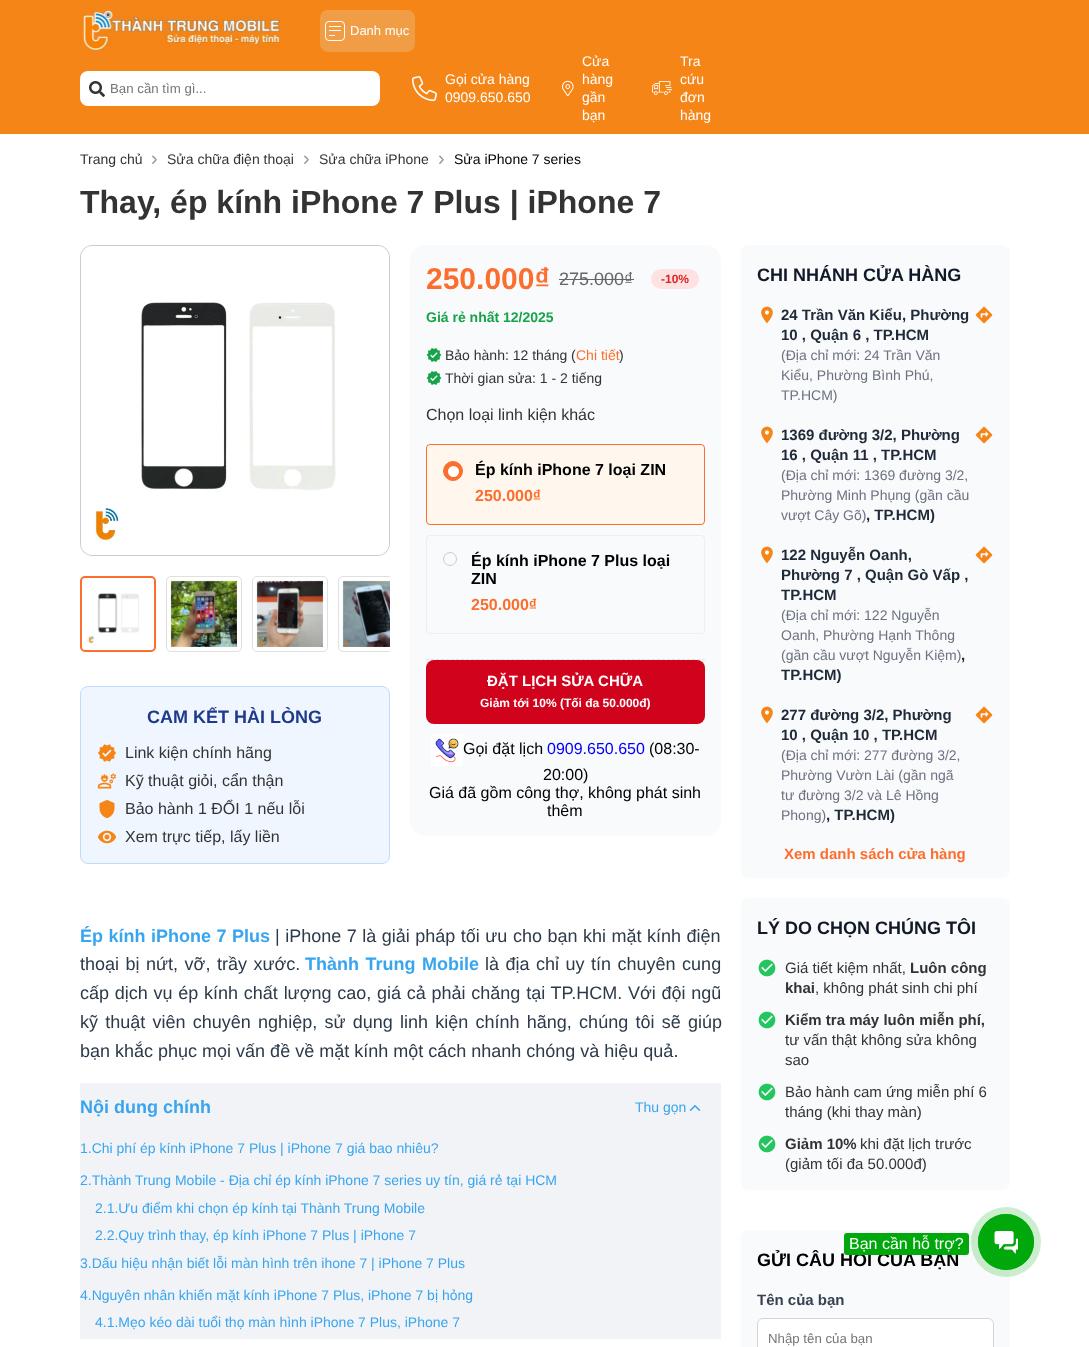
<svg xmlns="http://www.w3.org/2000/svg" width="1089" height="1347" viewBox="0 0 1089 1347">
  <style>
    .t1 { font: 13px Liberation Sans; fill: #fff; }
    .t2 { font: 13.25px Liberation Sans; fill: #757575; }
    .t3 { font: 14px Liberation Sans; fill: #fff; }
    .t4 { font: 14px Liberation Sans; fill: #333; }
    .t5 { font: 20px Liberation Sans; fill: #999; }
    .t6 { font: 14px Liberation Sans; fill: #000; }
    .t7 { font: bold 32px Liberation Sans; fill: #333; }
    .t8 { font: bold 18px Liberation Sans; fill: #1e3a8a; }
    .t9 { font: 16px Liberation Sans; fill: #333; }
    .t10 { font: bold 30px Liberation Sans; fill: #fc6e2e; }
    .t11 { font: 18px Liberation Sans; fill: #666; }
    .t12 { font: bold 12px Liberation Sans; fill: #dc2626; }
    .t13 { font: bold 14px Liberation Sans; fill: #16a34a; }
    .t14 { font: 14px Liberation Sans; fill: #fc6e2e; }
    .t15 { font: bold 16px Liberation Sans; fill: #000; }
    .t16 { font: bold 16px Liberation Sans; fill: #fc6e2e; }
    .t17 { font: bold 15px Liberation Sans; fill: #fff; }
    .t18 { font: bold 12px Liberation Sans; fill: #fff; }
    .t19 { font: 16px Liberation Sans; fill: #000; }
    .t20 { font: 16px Liberation Sans; fill: #00f; }
    .t21 { font: bold 18px Liberation Sans; fill: #38a5ee; }
    .t22 { font: 18px Liberation Sans; fill: #2d3a4a; }
    .t23 { font: 14px Liberation Sans; fill: #38a5ee; }
    .t24 { font: bold 18px Liberation Sans; fill: #111827; }
    .t25 { font: bold 15px Liberation Sans; fill: #1f2937; }
    .t26 { font: 14px Liberation Sans; fill: #6b7280; }
    .t27 { font: bold 15px Liberation Sans; fill: #fc6e2e; }
    .t28 { font: 15px Liberation Sans; fill: #333; }
    .t29 { font: bold 15px Liberation Sans; fill: #333; }
    .t30 { font: bold 18px Liberation Sans; fill: #000; }
    .t31 { font: bold 15px Liberation Sans; fill: #374151; }
    .t32 { font: 16px Liberation Sans; fill: #fff; }
  </style>
  <defs>
    <clipPath id="clip1"><rect x="80" y="566" width="310" height="96"/></clipPath>
  </defs>
  <rect width="100%" height="100%" fill="#fff"/>
  <rect x="0" y="0" width="1089" height="134" fill="#f58517"/>
  <image x="80" y="10" width="200" height="42" href="images/1.png"/>
  <rect x="320" y="10" width="95" height="42" rx="8" fill="#f19d45"/>
  <rect x="325.5" y="21.5" width="19" height="19" rx="3.5" fill="none" stroke="#fff"/>
  <rect x="329" y="26" width="12" height="1" fill="#fff"/>
  <rect x="329" y="30" width="12" height="1" fill="#fff"/>
  <rect x="329" y="35" width="6" height="1" fill="#fff"/>
  <text x="350" y="35" class="t1">Danh mục</text>
  <rect x="80" y="71" width="300" height="35" rx="8" fill="#fff"/>
  <image x="89" y="81" width="16" height="16" href="images/2.png"/>
  <text x="110" y="93" class="t2">Bạn cần tìm gì...</text>
  <image x="412" y="76" width="25" height="25" href="images/3.png"/>
  <text x="445" y="84" class="t3">Gọi cửa hàng</text>
  <text x="445" y="102" class="t3">0909.650.650</text>
  <image x="562" y="80" width="12" height="17" href="images/4.png"/>
  <text x="582" y="66" class="t3">Cửa</text>
  <text x="582" y="84" class="t3">hàng</text>
  <text x="582" y="102" class="t3">gần</text>
  <text x="582" y="120" class="t3">bạn</text>
  <image x="652" y="81" width="20" height="14" href="images/5.png"/>
  <text x="680" y="66" class="t3">Tra</text>
  <text x="680" y="84" class="t3">cứu</text>
  <text x="680" y="102" class="t3">đơn</text>
  <text x="680" y="120" class="t3">hàng</text>
  <text x="80" y="164" class="t4">Trang chủ</text>
  <text x="151" y="165" class="t5">›</text>
  <text x="167" y="164" class="t4">Sửa chữa điện thoại</text>
  <text x="303" y="165" class="t5">›</text>
  <text x="319" y="164" class="t4">Sửa chữa iPhone</text>
  <text x="438" y="165" class="t5">›</text>
  <text x="454" y="164" class="t6">Sửa iPhone 7 series</text>
  <text x="80" y="213" class="t7">Thay, ép kính iPhone 7 Plus | iPhone 7</text>
  <rect x="80.5" y="245.5" width="309" height="310" rx="11.5" fill="none" stroke="#ccc"/>
  <image x="81" y="246" width="308" height="309" href="images/6.png"/>
  <rect x="81" y="577" width="74" height="74" rx="4" fill="none" stroke="#fc6e2e" stroke-width="2"/>
  <image x="88" y="593" width="52" height="51" href="images/7.png"/>
  <rect x="166.5" y="576.5" width="75" height="75" rx="4.5" fill="none" stroke="#e0e0e0"/>
  <image x="170" y="580" width="67" height="67" href="images/8.png"/>
  <rect x="252.5" y="576.5" width="75" height="75" rx="4.5" fill="none" stroke="#e0e0e0"/>
  <image x="256" y="580" width="67" height="67" href="images/9.png"/>
  <rect x="410" y="245" width="311" height="591" rx="16" fill="#f9fafb"/>
  <g clip-path="url(#clip1)">
    <rect x="338.5" y="576.5" width="75" height="75" rx="4.5" fill="none" stroke="#e0e0e0"/>
  </g>
  <image x="342" y="580" width="48" height="67" href="images/10.png"/>
  <rect x="80.5" y="686.5" width="309" height="177" rx="7.5" fill="#eff6ff" stroke="#bfdbfe"/>
  <text x="147" y="723" class="t8">CAM KẾT HÀI LÒNG</text>
  <image x="98" y="744" width="18" height="18" href="images/11.png"/>
  <text x="125" y="758" class="t9">Link kiện chính hãng</text>
  <image x="97" y="773" width="19" height="16" href="images/12.png"/>
  <text x="125" y="786" class="t9">Kỹ thuật giỏi, cẩn thận</text>
  <image x="99" y="799" width="16" height="20" href="images/13.png"/>
  <text x="125" y="814" class="t9">Bảo hành 1 ĐỔI 1 nếu lỗi</text>
  <image x="97" y="830" width="20" height="14" href="images/14.png"/>
  <text x="125" y="842" class="t9">Xem trực tiếp, lấy liền</text>
  <text x="426" y="289" class="t10">250.000₫</text>
  <text x="559" y="285" class="t11">275.000₫</text>
  <rect x="559" y="279" width="75" height="1" fill="#666"/>
  <rect x="651" y="269" width="48" height="20" rx="10" fill="#fee2e2"/>
  <text x="661" y="283" class="t12">-10%</text>
  <text x="426" y="322" class="t13">Giá rẻ nhất 12/2025</text>
  <image x="426" y="348" width="16" height="14" href="images/15.png"/>
  <text x="445" y="360" class="t4">Bảo hành: 12 tháng (</text>
  <text x="576" y="360" class="t14">Chi tiết</text>
  <text x="619" y="360" class="t4">)</text>
  <image x="426" y="371" width="16" height="14" href="images/15.png"/>
  <text x="445" y="383" class="t4">Thời gian sửa: 1 - 2 tiếng</text>
  <path d="M426 659.5H705" fill="none" stroke="#e0e0e0" stroke-dasharray="3 2.02"/>
  <text x="426" y="420" class="t9">Chọn loại linh kiện khác</text>
  <rect x="426.5" y="444.5" width="278" height="80" rx="3.5" fill="#fff7ed" stroke="#fc6e2e"/>
  <circle cx="453" cy="471" r="9.5" fill="#fc6e2e" stroke="#fc6e2e"/>
  <circle cx="453.5" cy="471.5" r="5.5" fill="#fff"/>
  <text x="475" y="475" class="t15">Ép kính iPhone 7 loại ZIN</text>
  <text x="475" y="501" class="t16">250.000₫</text>
  <rect x="426.5" y="535.5" width="278" height="98" rx="3.5" fill="none" stroke="#eee"/>
  <circle cx="450" cy="559" r="6.5" fill="none" stroke="#ccc"/>
  <text x="471" y="566" class="t15">Ép kính iPhone 7 Plus loại</text>
  <text x="471" y="584" class="t15">ZIN</text>
  <text x="471" y="610" class="t16">250.000₫</text>
  <rect x="426" y="660" width="279" height="64" rx="8" fill="#d0021c"/>
  <text x="487" y="686" class="t17">ĐẶT LỊCH SỬA CHỮA</text>
  <text x="480" y="707" class="t18">Giảm tới 10% (Tối đa 50.000đ)</text>
  <image x="431" y="734" width="32" height="32" href="images/16.png"/>
  <text x="463" y="754" class="t19">Gọi đặt lịch</text>
  <text x="547" y="754" class="t20">0909.650.650</text>
  <text x="649" y="754" class="t19">(08:30-</text>
  <text x="543" y="780" class="t19">20:00)</text>
  <text x="429" y="798" class="t19">Giá đã gồm công thợ, không phát sinh</text>
  <text x="547" y="816" class="t19">thêm</text>
  <text x="80" y="942" word-spacing="0.5" class="t21">Ép kính iPhone 7 Plus</text>
  <text x="275" y="942" word-spacing="0.5" class="t22">| iPhone 7 là giải pháp tối ưu cho bạn khi mặt kính điện</text>
  <text x="80" y="970" word-spacing="1.5" class="t22">thoại bị nứt, vỡ, trầy xước.</text>
  <text x="305" y="970" word-spacing="1.5" class="t21">Thành Trung Mobile</text>
  <text x="485" y="970" word-spacing="1.5" class="t22">là địa chỉ uy tín chuyên cung</text>
  <text x="80" y="999" word-spacing="0.75" class="t22">cấp dịch vụ ép kính chất lượng cao, giá cả phải chăng tại TP.HCM. Với đội ngũ</text>
  <text x="80" y="1028" word-spacing="2.25" class="t22">kỹ thuật viên chuyên nghiệp, sử dụng linh kiện chính hãng, chúng tôi sẽ giúp</text>
  <text x="80" y="1057" class="t22">bạn khắc phục mọi vấn đề về mặt kính một cách nhanh chóng và hiệu quả.</text>
  <rect x="80" y="1083" width="641" height="256" fill="#f2f3f7"/>
  <text x="80" y="1113" class="t21">Nội dung chính</text>
  <text x="635" y="1112" class="t23">Thu gọn</text>
  <image x="689" y="1105" width="12" height="6" href="images/17.png"/>
  <text x="80" y="1153" class="t23">1.Chi phí ép kính iPhone 7 Plus | iPhone 7 giá bao nhiêu?</text>
  <text x="80" y="1185" class="t23">2.Thành Trung Mobile - Địa chỉ ép kính iPhone 7 series uy tín, giá rẻ tại HCM</text>
  <text x="95" y="1213" class="t23">2.1.Ưu điểm khi chọn ép kính tại Thành Trung Mobile</text>
  <text x="95" y="1240" class="t23">2.2.Quy trình thay, ép kính iPhone 7 Plus | iPhone 7</text>
  <text x="80" y="1268" class="t23">3.Dấu hiệu nhận biết lỗi màn hình trên ihone 7 | iPhone 7 Plus</text>
  <text x="80" y="1300" class="t23">4.Nguyên nhân khiến mặt kính iPhone 7 Plus, iPhone 7 bị hỏng</text>
  <text x="95" y="1327" class="t23">4.1.Mẹo kéo dài tuổi thọ màn hình iPhone 7 Plus, iPhone 7</text>
  <rect x="741" y="245" width="269" height="633" rx="8" fill="#f9fafb"/>
  <text x="757" y="281" class="t24">CHI NHÁNH CỬA HÀNG</text>
  <image x="761" y="306" width="12" height="18" href="images/18.png"/>
  <text x="781" y="320" class="t25">24 Trần Văn Kiểu, Phường</text>
  <text x="781" y="340" class="t25">10 , Quận 6 , TP.HCM</text>
  <text x="781" y="360" class="t26">(Địa chỉ mới: 24 Trần Văn</text>
  <text x="781" y="380" class="t26">Kiểu, Phường Bình Phú,</text>
  <text x="781" y="400" class="t26">TP.HCM)</text>
  <image x="975" y="306" width="18" height="18" href="images/19.png"/>
  <image x="761" y="426" width="12" height="18" href="images/18.png"/>
  <text x="781" y="440" class="t25">1369 đường 3/2, Phường</text>
  <text x="781" y="460" class="t25">16 , Quận 11 , TP.HCM</text>
  <text x="781" y="480" class="t26">(Địa chỉ mới: 1369 đường 3/2,</text>
  <text x="781" y="500" class="t26">Phường Minh Phụng (gần cầu</text>
  <text x="781" y="520" class="t26">vượt Cây Gõ)</text>
  <text x="866" y="520" class="t25">, TP.HCM)</text>
  <image x="975" y="426" width="18" height="18" href="images/19.png"/>
  <image x="761" y="546" width="12" height="18" href="images/18.png"/>
  <text x="781" y="560" class="t25">122 Nguyễn Oanh,</text>
  <text x="781" y="580" class="t25">Phường 7 , Quận Gò Vấp ,</text>
  <text x="781" y="600" class="t25">TP.HCM</text>
  <text x="781" y="620" class="t26">(Địa chỉ mới: 122 Nguyễn</text>
  <text x="781" y="640" class="t26">Oanh, Phường Hạnh Thông</text>
  <text x="781" y="660" class="t26">(gần cầu vượt Nguyễn Kiệm)</text>
  <text x="961" y="660" class="t25">,</text>
  <text x="781" y="680" class="t25">TP.HCM)</text>
  <image x="975" y="546" width="18" height="18" href="images/19.png"/>
  <image x="761" y="706" width="12" height="18" href="images/18.png"/>
  <text x="781" y="720" class="t25">277 đường 3/2, Phường</text>
  <text x="781" y="740" class="t25">10 , Quận 10 , TP.HCM</text>
  <text x="781" y="760" class="t26">(Địa chỉ mới: 277 đường 3/2,</text>
  <text x="781" y="780" class="t26">Phường Vườn Lài (gần ngã</text>
  <text x="781" y="800" class="t26">tư đường 3/2 và Lê Hồng</text>
  <text x="781" y="820" class="t26">Phong)</text>
  <text x="826" y="820" class="t25">, TP.HCM)</text>
  <image x="975" y="706" width="18" height="18" href="images/19.png"/>
  <text x="784" y="859" class="t27">Xem danh sách cửa hàng</text>
  <rect x="741" y="898" width="269" height="292" rx="8" fill="#f9fafb"/>
  <text x="757" y="934" class="t24">LÝ DO CHỌN CHÚNG TÔI</text>
  <image x="758" y="959" width="18" height="18" href="images/20.png"/>
  <text x="785" y="973" class="t28">Giá tiết kiệm nhất,</text>
  <text x="910" y="973" class="t29">Luôn công</text>
  <text x="785" y="993" class="t29">khai</text>
  <text x="815" y="993" class="t28">, không phát sinh chi phí</text>
  <image x="758" y="1011" width="18" height="18" href="images/20.png"/>
  <text x="785" y="1025" class="t29">Kiểm tra máy luôn miễn phí,</text>
  <text x="785" y="1045" class="t28">tư vấn thật không sửa không</text>
  <text x="785" y="1065" class="t28">sao</text>
  <image x="758" y="1083" width="18" height="18" href="images/20.png"/>
  <text x="785" y="1097" class="t28">Bảo hành cam ứng miễn phí 6</text>
  <text x="785" y="1117" class="t28">tháng (khi thay màn)</text>
  <image x="758" y="1135" width="18" height="18" href="images/20.png"/>
  <text x="785" y="1149" class="t29">Giảm 10%</text>
  <text x="860" y="1149" class="t28">khi đặt lịch trước</text>
  <text x="785" y="1169" class="t28">(giảm tối đa 50.000đ)</text>
  <rect x="741" y="1230" width="269" height="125" rx="8" fill="#f9fafb"/>
  <text x="757" y="1266" class="t30">GỬI CÂU HỎI CỦA BẠN</text>
  <text x="757" y="1305" class="t31">Tên của bạn</text>
  <rect x="757.5" y="1318.5" width="236" height="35" rx="5.5" fill="#fff" stroke="#d1d5db"/>
  <text x="768" y="1343" class="t2">Nhập tên của bạn</text>
  <rect x="844" y="1233" width="125" height="22" rx="3" fill="#00a80b"/>
  <text x="849" y="1249" class="t32">Bạn cần hỗ trợ?</text>
  <circle cx="1006" cy="1242" r="35" fill="#00a80b33"/>
  <circle cx="1006" cy="1242" r="27.6" fill="none" stroke="#00a80b" stroke-width="0.8"/>
  <circle cx="1006" cy="1242" r="28" fill="#00a80b"/>
  <image x="994" y="1231" width="24" height="23" href="images/21.png"/>
</svg>
